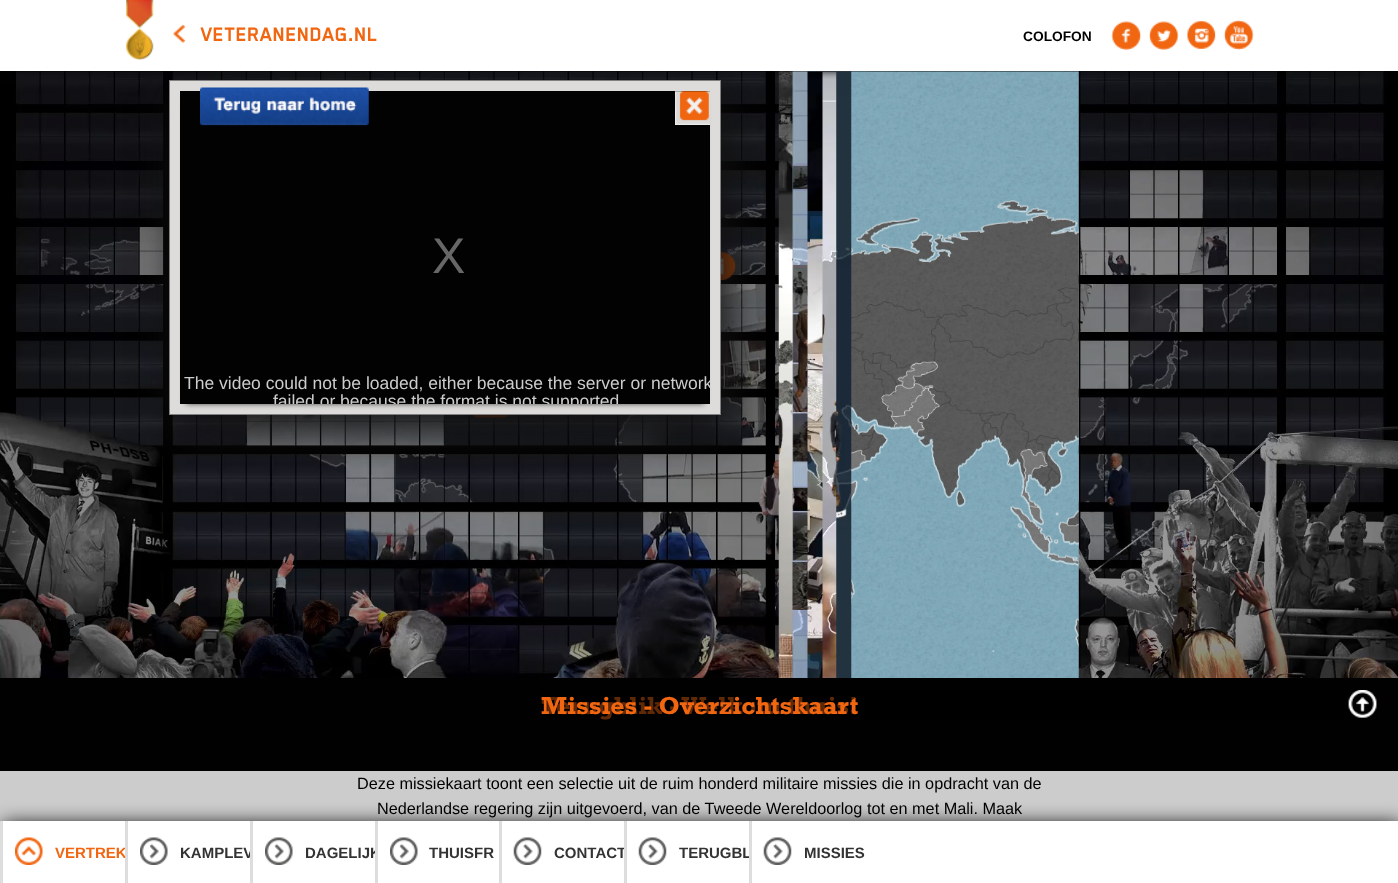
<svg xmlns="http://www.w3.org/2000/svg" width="1398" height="883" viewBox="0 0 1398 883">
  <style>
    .t1 { font: bold 22.5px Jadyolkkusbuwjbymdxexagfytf; fill: #f16611; }
    .t2 { font: bold 13.75px Liberation Sans; fill: #000; }
    .t3 { font: 50px Liberation Sans; fill: #676767; }
    .t4 { font: 17.5px Liberation Sans; fill: #ccc; }
    .t5 { font: bold 25px Rockwell; fill: #f16611; }
    .t6 { font: 16.25px Liberation Sans; fill: #000; }
    .t7 { font: bold 15px Liberation Sans; fill: #f16611; }
    .t8 { font: bold 15px Liberation Sans; fill: #333; }
  </style>
  <defs>
    <clipPath id="clip1"><rect x="180" y="91" width="530" height="313"/></clipPath>
  </defs>
  <rect width="100%" height="100%" fill="#000"/>
  <image x="0" y="71" width="1398" height="750" href="images/7.png"/>
  <image x="721" y="251" width="16" height="29" href="images/8.png"/>
  <image x="471" y="415" width="39" height="4" href="images/9.png"/>
  <rect x="175" y="99" width="553" height="335" fill="#111" filter="blur(22px)"/>
  <rect x="0" y="0" width="1398" height="71" fill="#fff"/>
  <image x="126" y="0" width="60" height="60" href="images/1.png"/>
  <text x="201" y="41" class="t1">VETERANENDAG.NL</text>
  <text x="1023" y="41" class="t2">COLOFON</text>
  <image x="1111" y="21" width="31" height="29" href="images/2.png"/>
  <image x="1148" y="21" width="31" height="29" href="images/3.png"/>
  <image x="1187" y="21" width="29" height="28" href="images/4.png"/>
  <image x="1223" y="20" width="31" height="30" href="images/5.png"/>
  <rect x="169.5" y="80.5" width="551" height="334" fill="#dedcdb" stroke="#808080"/>
  <rect x="186" y="103" width="518" height="300" fill="#131313" filter="blur(3px)"/>
  <rect x="180" y="91" width="530" height="313" fill="#020202"/>
  <image x="200" y="87" width="169" height="39" href="images/6.png"/>
  <image x="778" y="71" width="30" height="750" href="images/10.png"/>
  <image x="792" y="71" width="31" height="750" href="images/11.png"/>
  <image x="807" y="71" width="30" height="750" href="images/12.png"/>
  <image x="822" y="71" width="30" height="750" href="images/13.png"/>
  <image x="836" y="71" width="31" height="750" href="images/14.png"/>
  <image x="675" y="91" width="35" height="34" href="images/15.png"/>
  <text x="432" y="273" class="t3">X</text>
  <g clip-path="url(#clip1)">
    <text x="184" y="389" class="t4">The video could not be loaded, either because the server or network</text>
    <text x="273" y="407" class="t4">failed or because the format is not supported</text>
  </g>
  <image x="851" y="71" width="228" height="750" href="images/16.png"/>
  <rect x="0" y="678" width="1398" height="143" fill="#00000099"/>
  <image x="1361" y="690" width="28" height="28" href="images/17.png"/>
  <rect x="0" y="678" width="1398" height="143" fill="#00000099"/>
  <image x="1361" y="690" width="28" height="28" href="images/18.png"/>
  <rect x="0" y="678" width="1398" height="143" fill="#00000099"/>
  <image x="1361" y="690" width="28" height="28" href="images/19.png"/>
  <rect x="10" y="678" width="1388" height="143" fill="#00000099"/>
  <image x="1361" y="690" width="28" height="28" href="images/25.png"/>
  <rect x="779" y="678" width="610" height="143" fill="#00000099"/>
  <image x="1361" y="690" width="28" height="28" href="images/26.png"/>
  <rect x="1361" y="690" width="28" height="28" fill="#00000099"/>
  <image x="1361" y="690" width="28" height="28" href="images/28.png"/>
  <rect x="0" y="678" width="1398" height="143" fill="#ffffffcc"/>
  <image x="1361" y="690" width="28" height="28" href="images/30.png"/>
  <rect x="0" y="678" width="1398" height="93" fill="#00000099"/>
  <image x="1348" y="690" width="29" height="28" href="images/20.png"/>
  <rect x="0" y="678" width="1398" height="93" fill="#00000099"/>
  <image x="1348" y="690" width="29" height="28" href="images/21.png"/>
  <rect x="0" y="678" width="1398" height="93" fill="#00000099"/>
  <image x="1348" y="690" width="29" height="28" href="images/22.png"/>
  <rect x="0" y="678" width="1398" height="93" fill="#00000099"/>
  <image x="1348" y="690" width="29" height="28" href="images/23.png"/>
  <rect x="0" y="678" width="1398" height="93" fill="#00000099"/>
  <image x="1348" y="690" width="29" height="28" href="images/24.png"/>
  <rect x="1348" y="690" width="29" height="28" fill="#00000099"/>
  <text x="541" y="714" class="t5">Terugblik - Welkom thuis!</text>
  <image x="1348" y="690" width="29" height="28" href="images/27.png"/>
  <rect x="541" y="690" width="836" height="30" fill="#00000099"/>
  <text x="541" y="714" class="t5">Missies - Overzichtskaart</text>
  <image x="1348" y="690" width="29" height="28" href="images/29.png"/>
  <text x="357" y="789" class="t6">Deze missiekaart toont een selectie uit de ruim honderd militaire missies die in opdracht van de</text>
  <text x="377" y="814" class="t6">Nederlandse regering zijn uitgevoerd, van de Tweede Wereldoorlog tot en met Mali. Maak</text>
  <rect x="3" y="824" width="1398" height="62" fill="#000" filter="blur(9.5px)"/>
  <rect x="3" y="821" width="1395" height="62" fill="#fff"/>
  <image x="15" y="837" width="28" height="28" href="images/31.png"/>
  <rect x="0" y="821" width="3" height="62" fill="#ddd"/>
  <text x="55" y="858" class="t7">VERTREK</text>
  <image x="140" y="837" width="28" height="28" href="images/32.png"/>
  <rect x="125" y="821" width="3" height="62" fill="#ddd"/>
  <text x="180" y="858" class="t8">KAMPLEV</text>
  <image x="265" y="837" width="28" height="28" href="images/33.png"/>
  <rect x="250" y="821" width="3" height="62" fill="#ddd"/>
  <text x="305" y="858" class="t8">DAGELIJK</text>
  <rect x="378" y="847" width="3" height="11" fill="#fff"/>
  <image x="390" y="837" width="28" height="28" href="images/32.png"/>
  <rect x="375" y="821" width="3" height="62" fill="#ddd"/>
  <text x="429" y="858" class="t8">THUISFR</text>
  <image x="513" y="837" width="29" height="28" href="images/34.png"/>
  <rect x="499" y="821" width="3" height="62" fill="#ddd"/>
  <text x="554" y="858" class="t8">CONTACT</text>
  <image x="638" y="837" width="29" height="28" href="images/34.png"/>
  <rect x="624" y="821" width="3" height="62" fill="#ddd"/>
  <text x="679" y="858" class="t8">TERUGBL</text>
  <image x="763" y="837" width="29" height="28" href="images/34.png"/>
  <rect x="749" y="821" width="3" height="62" fill="#ddd"/>
  <text x="804" y="858" class="t8">MISSIES</text>
</svg>
